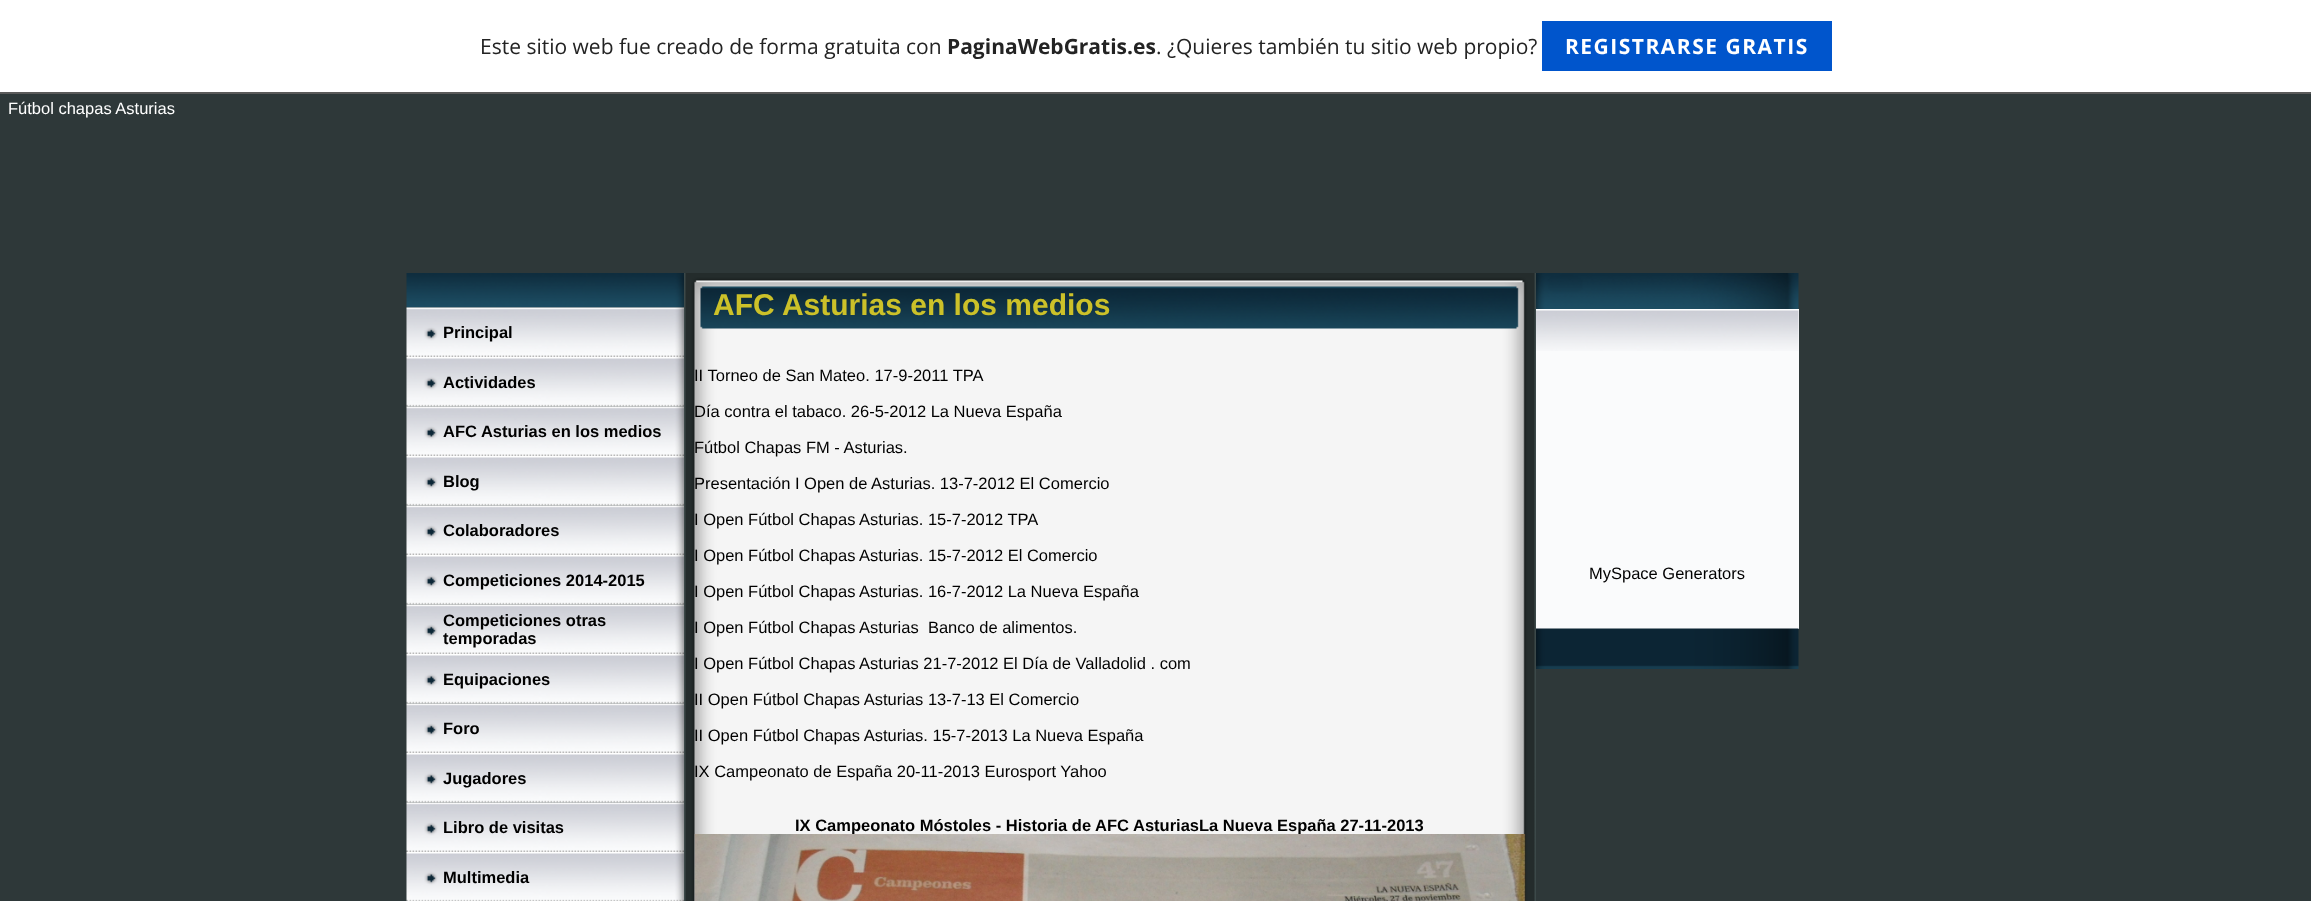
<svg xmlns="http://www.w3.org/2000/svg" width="2311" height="901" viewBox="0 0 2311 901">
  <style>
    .t1 { font: 21px Open Sans; fill: #232323; }
    .t2 { font: bold 21px Open Sans; fill: #232323; }
    .t3 { font: bold 21px Open Sans; letter-spacing: 1.5px; fill: #fff; }
    .t4 { font: 16.5px Liberation Sans; fill: #fff; }
    .t5 { font: bold 16.5px Liberation Sans; fill: #000; }
    .t6 { font: bold 30px Liberation Sans; fill: #ccc129; }
    .t7 { font: 16.5px Liberation Sans; fill: #000; }
  </style>
  <rect width="100%" height="100%" fill="#2e3839"/>
  <rect x="0" y="0" width="2311" height="92" fill="#fff"/>
  <rect x="0" y="92" width="2311" height="2" fill="#5a5a5a"/>
  <text x="480" y="54" class="t1">Este sitio web fue creado de forma gratuita con</text>
  <text x="947" y="54" class="t2">PaginaWebGratis.es</text>
  <text x="1156" y="54" class="t1">. ¿Quieres también tu sitio web propio?</text>
  <rect x="1542" y="21" width="290" height="50" fill="#05c"/>
  <text x="1565" y="54" class="t3">REGISTRARSE GRATIS</text>
  <text x="8" y="114" class="t4">Fútbol chapas Asturias</text>
  <image x="406" y="273" width="278" height="35" href="images/1.png"/>
  <image x="406" y="307" width="278" height="50" href="images/2.png"/>
  <text x="443" y="338" class="t5">Principal</text>
  <image x="406" y="357" width="278" height="50" href="images/3.png"/>
  <text x="443" y="388" class="t5">Actividades</text>
  <image x="406" y="406" width="278" height="50" href="images/4.png"/>
  <text x="443" y="437" class="t5">AFC Asturias en los medios</text>
  <image x="406" y="456" width="278" height="50" href="images/3.png"/>
  <text x="443" y="487" class="t5">Blog</text>
  <image x="406" y="505" width="278" height="50" href="images/4.png"/>
  <text x="443" y="536" class="t5">Colaboradores</text>
  <image x="406" y="555" width="278" height="50" href="images/3.png"/>
  <text x="443" y="586" class="t5">Competiciones 2014-2015</text>
  <image x="406" y="604" width="278" height="50" href="images/4.png"/>
  <text x="443" y="626" class="t5">Competiciones otras</text>
  <text x="443" y="644" class="t5">temporadas</text>
  <image x="406" y="654" width="278" height="50" href="images/3.png"/>
  <text x="443" y="685" class="t5">Equipaciones</text>
  <image x="406" y="703" width="278" height="50" href="images/4.png"/>
  <text x="443" y="734" class="t5">Foro</text>
  <image x="406" y="753" width="278" height="50" href="images/3.png"/>
  <text x="443" y="784" class="t5">Jugadores</text>
  <image x="406" y="802" width="278" height="50" href="images/4.png"/>
  <text x="443" y="833" class="t5">Libro de visitas</text>
  <image x="406" y="852" width="278" height="49" href="images/5.png"/>
  <text x="443" y="883" class="t5">Multimedia</text>
  <image x="684" y="273" width="852" height="57" href="images/6.png"/>
  <text x="713" y="315" class="t6">AFC Asturias en los medios</text>
  <image x="684" y="330" width="852" height="571" href="images/7.png"/>
  <text x="694" y="381" class="t7">II Torneo de San Mateo. 17-9-2011 TPA</text>
  <text x="694" y="417" class="t7">Día contra el tabaco. 26-5-2012 La Nueva España</text>
  <text x="694" y="453" class="t7">Fútbol Chapas FM - Asturias.</text>
  <text x="694" y="489" class="t7">Presentación I Open de Asturias. 13-7-2012 El Comercio</text>
  <text x="694" y="525" class="t7">I Open Fútbol Chapas Asturias. 15-7-2012 TPA</text>
  <text x="694" y="561" class="t7">I Open Fútbol Chapas Asturias. 15-7-2012 El Comercio</text>
  <text x="694" y="597" class="t7">I Open Fútbol Chapas Asturias. 16-7-2012 La Nueva España</text>
  <text x="694" y="633" class="t7" xml:space="preserve">I Open Fútbol Chapas Asturias  Banco de alimentos.</text>
  <text x="694" y="669" class="t7">I Open Fútbol Chapas Asturias 21-7-2012 El Día de Valladolid . com</text>
  <text x="694" y="705" class="t7">II Open Fútbol Chapas Asturias 13-7-13 El Comercio</text>
  <text x="694" y="741" class="t7">II Open Fútbol Chapas Asturias. 15-7-2013 La Nueva España</text>
  <text x="694" y="777" class="t7">IX Campeonato de España 20-11-2013 Eurosport Yahoo</text>
  <text x="795" y="831" class="t5">IX Campeonato Móstoles - Historia de AFC AsturiasLa Nueva España 27-11-2013</text>
  <image x="694" y="834" width="832" height="67" href="images/8.png"/>
  <image x="1536" y="273" width="263" height="36" href="images/9.png"/>
  <rect x="1536" y="309" width="263" height="320" fill="#fafbfc"/>
  <image x="1536" y="309" width="263" height="42" href="images/10.png"/>
  <text x="1589" y="579" class="t7">MySpace Generators</text>
  <image x="1536" y="628" width="263" height="41" href="images/11.png"/>
</svg>
